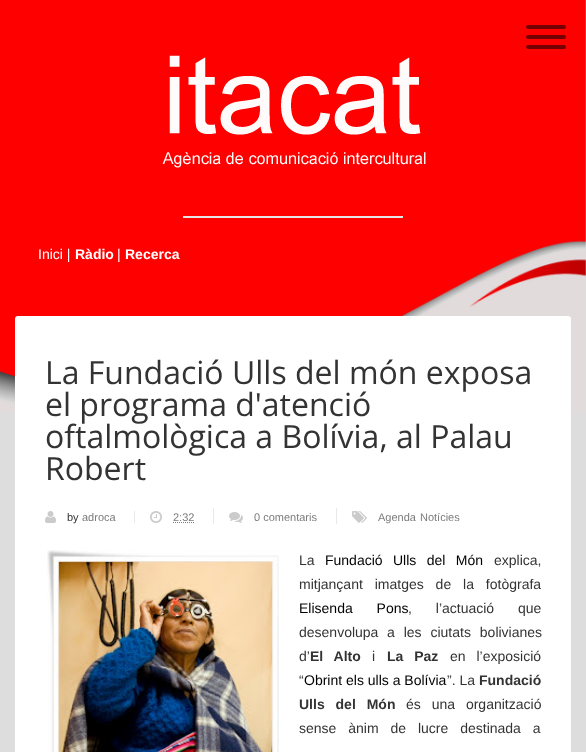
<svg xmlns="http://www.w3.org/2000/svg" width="586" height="752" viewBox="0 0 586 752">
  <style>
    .t1 { font: 14px Liberation Sans; fill: #fff; }
    .t2 { font: bold 14px Liberation Sans; fill: #fff; }
    .t3 { font: 32px Open Sans; fill: #333; }
    .t4 { font: 11px Liberation Sans; fill: #333; }
    .t5 { font: 11px Liberation Sans; fill: #7c7c7c; }
    .t6 { font: 14px Liberation Sans; fill: #333; }
    .t7 { font: 14px Liberation Sans; fill: #000; }
    .t8 { font: bold 14px Liberation Sans; fill: #333; }
  </style>
  <rect width="100%" height="100%" fill="#ddd"/>
  <image x="0" y="0" width="586" height="413" href="images/1.png"/>
  <rect x="526" y="25" width="40" height="4" rx="2" fill="#750000"/>
  <rect x="526" y="35" width="40" height="4" rx="2" fill="#750000"/>
  <rect x="526" y="45" width="40" height="4" rx="2" fill="#750000"/>
  <image x="162" y="55" width="264" height="113" href="images/2.png"/>
  <rect x="183" y="216" width="220" height="2" fill="#e5e5e5"/>
  <text x="38" y="259" class="t1">Inici |</text>
  <text x="75" y="259" class="t2">Ràdio</text>
  <text x="117" y="259" class="t1">|</text>
  <text x="125" y="259" class="t2">Recerca</text>
  <rect x="15" y="316" width="556" height="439" rx="3" fill="#fff"/>
  <text x="45" y="384" class="t3">La Fundació Ulls del món exposa</text>
  <text x="45" y="416" class="t3">el programa d'atenció</text>
  <text x="45" y="448" class="t3">oftalmològica a Bolívia, al Palau</text>
  <text x="45" y="480" class="t3">Robert</text>
  <rect x="134" y="511" width="1" height="12" fill="#e8e8e8"/>
  <image x="45" y="511" width="11" height="12" href="images/3.png"/>
  <text x="67" y="521" class="t4">by</text>
  <text x="82" y="521" class="t5">adroca</text>
  <rect x="213" y="508" width="1" height="16" fill="#e8e8e8"/>
  <image x="150" y="511" width="12" height="12" href="images/4.png"/>
  <text x="173" y="521" class="t5">2:32</text>
  <path d="M173 522.5H194.5" fill="none" stroke="#7c7c7c" stroke-dasharray="1 1"/>
  <rect x="336" y="508" width="1" height="16" fill="#e8e8e8"/>
  <image x="229" y="512" width="14" height="11" href="images/5.png"/>
  <text x="254" y="521" class="t5">0 comentaris</text>
  <image x="352" y="511" width="15" height="12" href="images/6.png"/>
  <text x="378" y="521" class="t5">Agenda</text>
  <text x="420" y="521" class="t5">Notícies</text>
  <image x="47" y="550" width="232" height="202" href="images/7.png"/>
  <text x="299" y="565" class="t6">La</text>
  <text x="325" y="565" word-spacing="6.5" class="t7">Fundació Ulls del Món</text>
  <text x="494" y="565" class="t6">explica,</text>
  <text x="299" y="589" word-spacing="8" class="t6">mitjançant imatges de la fotògrafa</text>
  <text x="299" y="613" word-spacing="20" class="t7">Elisenda Pons</text>
  <text x="408" y="613" word-spacing="20" class="t6">, l’actuació que</text>
  <text x="299" y="637" class="t6">desenvolupa</text>
  <text x="387" y="637" word-spacing="5" class="t6">a les ciutats bolivianes</text>
  <text x="299" y="661" class="t6">d’</text>
  <text x="310" y="661" word-spacing="7" class="t8">El Alto</text>
  <text x="372" y="661" class="t6">i</text>
  <text x="387" y="661" word-spacing="7" class="t8">La Paz</text>
  <text x="450" y="661" word-spacing="7" class="t6">en l’exposició</text>
  <text x="299" y="685" class="t6">“</text>
  <text x="304" y="685" class="t7">Obrint els ulls a Bolívia</text>
  <text x="447" y="685" class="t6">”. La</text>
  <text x="479" y="685" class="t8">Fundació</text>
  <text x="299" y="709" word-spacing="7" class="t8">Ulls del Món</text>
  <text x="406" y="709" word-spacing="7" class="t6">és una organització</text>
  <text x="299" y="733" word-spacing="8" class="t6">sense ànim de lucre destinada a</text>
</svg>
